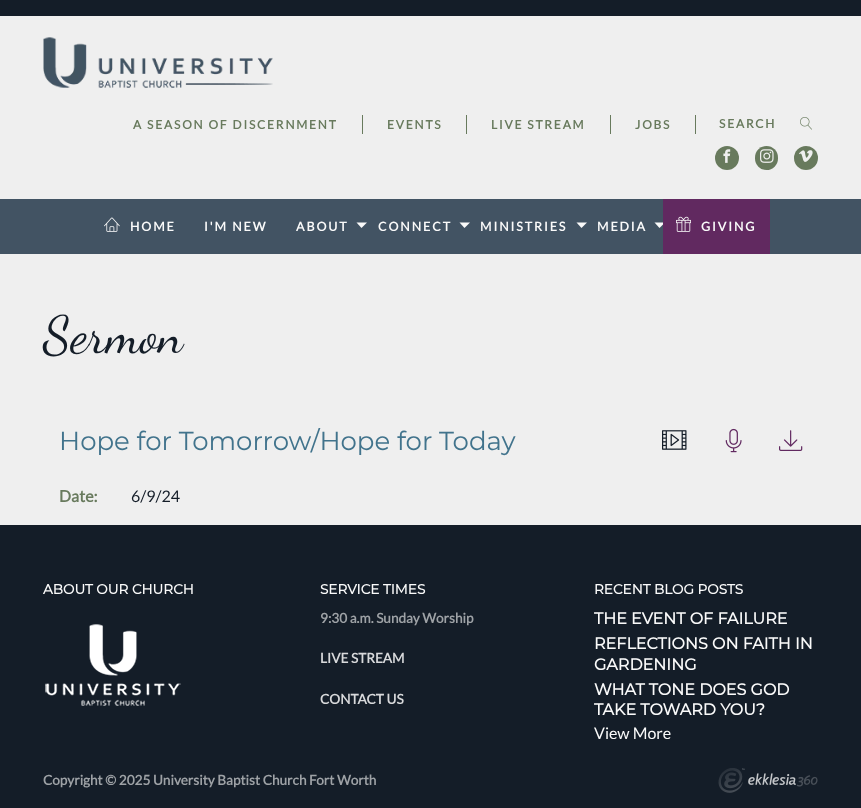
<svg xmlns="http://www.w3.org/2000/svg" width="861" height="808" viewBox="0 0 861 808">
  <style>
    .t1 { font: bold 12px Lato; letter-spacing: 1.8px; fill: #687a5d; }
    .t2 { font: bold 12.5px Lato; letter-spacing: 1.9px; fill: #fafafa; }
    .t3 { font: 52px Dancing Script; fill: #141d28; }
    .t4 { font: 100 26px Montserrat; fill: #41738c; }
    .t5 { font: bold 16px Lato; fill: #687a5d; }
    .t6 { font: 16px Lato; fill: #141d28; }
    .t7 { font: bold 13.6px Montserrat; fill: #fafafa; }
    .t8 { font: bold 13.6px Lato; fill: #9ea2a6; }
    .t9 { font: bold 13.6px Lato; fill: #d8d9db; }
    .t10 { font: bold 16px Montserrat; fill: #fafafa; }
    .t11 { font: 16px Lato; fill: #fafafa; }
  </style>
  <rect width="100%" height="100%" fill="#141d28"/>
  <rect x="0" y="16" width="861" height="183" fill="#efefef"/>
  <image x="43" y="37" width="230" height="51" href="images/1.png"/>
  <rect x="362" y="115" width="1" height="19" fill="#687a5d"/>
  <text x="133" y="129" class="t1">A SEASON OF DISCERNMENT</text>
  <rect x="466" y="115" width="1" height="19" fill="#687a5d"/>
  <text x="387" y="129" class="t1">EVENTS</text>
  <rect x="610" y="115" width="1" height="19" fill="#687a5d"/>
  <text x="491" y="129" class="t1">LIVE STREAM</text>
  <rect x="695" y="115" width="1" height="19" fill="#687a5d"/>
  <text x="635" y="129" class="t1">JOBS</text>
  <text x="719" y="128" class="t1">SEARCH</text>
  <image x="800" y="117" width="12" height="13" href="images/2.png"/>
  <circle cx="727" cy="158" r="12" fill="#687a5d"/>
  <image x="723" y="149" width="8" height="14" href="images/3.png"/>
  <rect x="755" y="146" width="23" height="24" rx="11.5" fill="#687a5d"/>
  <image x="760" y="149" width="14" height="14" href="images/4.png"/>
  <circle cx="806" cy="158" r="12" fill="#687a5d"/>
  <image x="799" y="150" width="14" height="12" href="images/5.png"/>
  <rect x="0" y="199" width="861" height="55" fill="#425363"/>
  <image x="104" y="217" width="16" height="15" href="images/6.png"/>
  <text x="130" y="231" class="t2">HOME</text>
  <text x="204" y="231" class="t2">I'M NEW</text>
  <text x="296" y="231" class="t2">ABOUT</text>
  <path d="M356.5 222.5H367L361.5 228Z" fill="#fafafa"/>
  <text x="378" y="231" class="t2">CONNECT</text>
  <path d="M459.5 222.5H470L464.5 228Z" fill="#fafafa"/>
  <text x="480" y="231" class="t2">MINISTRIES</text>
  <path d="M576.5 222.5H587L581.5 228Z" fill="#fafafa"/>
  <text x="597" y="231" class="t2">MEDIA</text>
  <path d="M654.5 222.5H665L659.5 228Z" fill="#fafafa"/>
  <rect x="663" y="199" width="107" height="55" fill="#612960"/>
  <image x="676" y="216" width="15" height="16" href="images/7.png"/>
  <text x="701" y="231" class="t2">GIVING</text>
  <rect x="0" y="254" width="861" height="271" fill="#efefef"/>
  <text x="43" y="352" class="t3">Sermon</text>
  <text x="59" y="450" class="t4">Hope for Tomorrow/Hope for Today</text>
  <image x="662" y="430" width="25" height="20" href="images/8.png"/>
  <image x="725" y="428" width="17" height="25" href="images/9.png"/>
  <image x="779" y="430" width="24" height="21" href="images/10.png"/>
  <text x="59" y="502" class="t5">Date:</text>
  <text x="131" y="502" class="t6">6/9/24</text>
  <text x="43" y="594" class="t7">ABOUT OUR CHURCH</text>
  <image x="45" y="624" width="136" height="82" href="images/11.png"/>
  <text x="320" y="594" class="t7">SERVICE TIMES</text>
  <text x="320" y="623" class="t8">9:30 a.m. Sunday Worship</text>
  <text x="320" y="663" class="t9">LIVE STREAM</text>
  <text x="320" y="704" class="t9">CONTACT US</text>
  <text x="594" y="594" class="t7">RECENT BLOG POSTS</text>
  <text x="594" y="624" class="t10">THE EVENT OF FAILURE</text>
  <text x="594" y="649" class="t10">REFLECTIONS ON FAITH IN</text>
  <text x="594" y="670" class="t10">GARDENING</text>
  <text x="594" y="695" class="t10">WHAT TONE DOES GOD</text>
  <text x="594" y="715" class="t10">TAKE TOWARD YOU?</text>
  <text x="594" y="739" class="t11">View More</text>
  <text x="43" y="785" class="t8">Copyright © 2025 University Baptist Church Fort Worth</text>
  <image x="718" y="768" width="100" height="25" href="images/12.png"/>
</svg>
